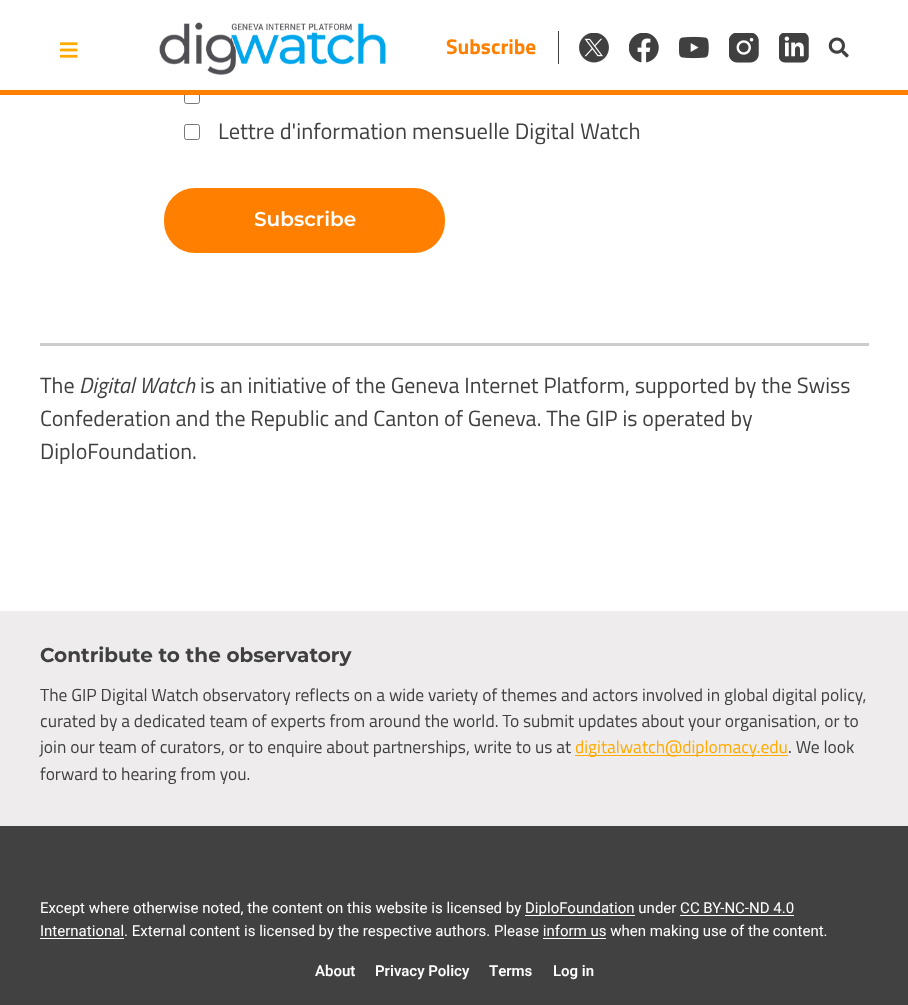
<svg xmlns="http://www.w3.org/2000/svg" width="908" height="1005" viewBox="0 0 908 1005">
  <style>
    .t1 { font: bold 21.25px Titillium Web; fill: #ff8000; }
    .t2 { font: 22.5px Titillium Web; fill: #404040; }
    .t3 { font: 600 20px Montserrat; fill: #fff; }
    .t4 { font: 22px Titillium Web; fill: #404040; }
    .t5 { font: italic 22px Titillium Web; fill: #404040; }
    .t6 { font: bold 20px Montserrat; fill: #404040; }
    .t7 { font: 17.5px Titillium Web; fill: #404040; }
    .t8 { font: 17.5px Titillium Web; fill: #fa0; }
    .t9 { font: 15px Heebo; fill: #fff; }
    .t10 { font: 600 15px Heebo; fill: #fff; }
  </style>
  <rect width="100%" height="100%" fill="#fff"/>
  <rect x="184.5" y="88.5" width="15" height="15" rx="2" fill="none" stroke="#767676"/>
  <rect x="184" y="88" width="16" height="2" fill="#fff"/>
  <image x="60" y="42" width="18" height="16" href="images/1.png"/>
  <image x="159" y="22" width="227" height="53" href="images/2.png"/>
  <rect x="558" y="31" width="1" height="33" fill="#404040"/>
  <text x="446" y="54" class="t1">Subscribe</text>
  <image x="579" y="33" width="30" height="30" href="images/3.png"/>
  <image x="629" y="33" width="30" height="30" href="images/4.png"/>
  <image x="679" y="36" width="30" height="23" href="images/5.png"/>
  <image x="729" y="33" width="30" height="30" href="images/6.png"/>
  <image x="779" y="33" width="30" height="30" href="images/7.png"/>
  <image x="828" y="37" width="21" height="21" href="images/8.png"/>
  <rect x="0" y="90" width="908" height="5" fill="#ff8000"/>
  <rect x="184.5" y="124.5" width="15" height="15" rx="2" fill="none" stroke="#767676"/>
  <text x="218" y="139" class="t2">Lettre d'information mensuelle Digital Watch</text>
  <rect x="164" y="188" width="281" height="65" rx="31" fill="#ff8000"/>
  <text x="254" y="226" class="t3">Subscribe</text>
  <rect x="40" y="343" width="829" height="3" fill="#ccc"/>
  <text x="40" y="393" class="t4">The</text>
  <text x="79" y="393" class="t5">Digital Watch</text>
  <text x="200" y="393" class="t4">is an initiative of the Geneva Internet Platform, supported by the Swiss</text>
  <text x="40" y="426" class="t4">Confederation and the Republic and Canton of Geneva. The GIP is operated by</text>
  <text x="40" y="459" class="t4">DiploFoundation.</text>
  <rect x="0" y="611" width="908" height="215" fill="#eeecec"/>
  <text x="40" y="662" class="t6">Contribute to the observatory</text>
  <text x="40" y="701" class="t7">The GIP Digital Watch observatory reflects on a wide variety of themes and actors involved in global digital policy,</text>
  <text x="40" y="727" class="t7">curated by a dedicated team of experts from around the world. To submit updates about your organisation, or to</text>
  <text x="40" y="753" class="t7">join our team of curators, or to enquire about partnerships, write to us at</text>
  <rect x="575" y="755" width="213" height="1" fill="#fa0"/>
  <text x="575" y="753" class="t8">digitalwatch@diplomacy.edu</text>
  <text x="788" y="753" class="t7">. We look</text>
  <text x="40" y="780" class="t7">forward to hearing from you.</text>
  <rect x="0" y="826" width="908" height="179" fill="#414141"/>
  <text x="40" y="913" class="t9">Except where otherwise noted, the content on this website is licensed by</text>
  <rect x="525" y="915" width="110" height="1" fill="#fff"/>
  <text x="525" y="913" class="t9">DiploFoundation under CC BY-NC-ND 4.0</text>
  <rect x="40" y="938" width="84" height="1" fill="#fff"/>
  <text x="40" y="936" class="t9">International. External content is licensed by the respective authors. Please inform us when making use of the content.</text>
  <rect x="680" y="915" width="114" height="1" fill="#fff"/>
  <rect x="543" y="938" width="63" height="1" fill="#fff"/>
  <text x="315" y="976" class="t10">About</text>
  <text x="375" y="976" class="t10">Privacy Policy</text>
  <text x="489" y="976" class="t10">Terms</text>
  <text x="553" y="976" class="t10">Log in</text>
</svg>
